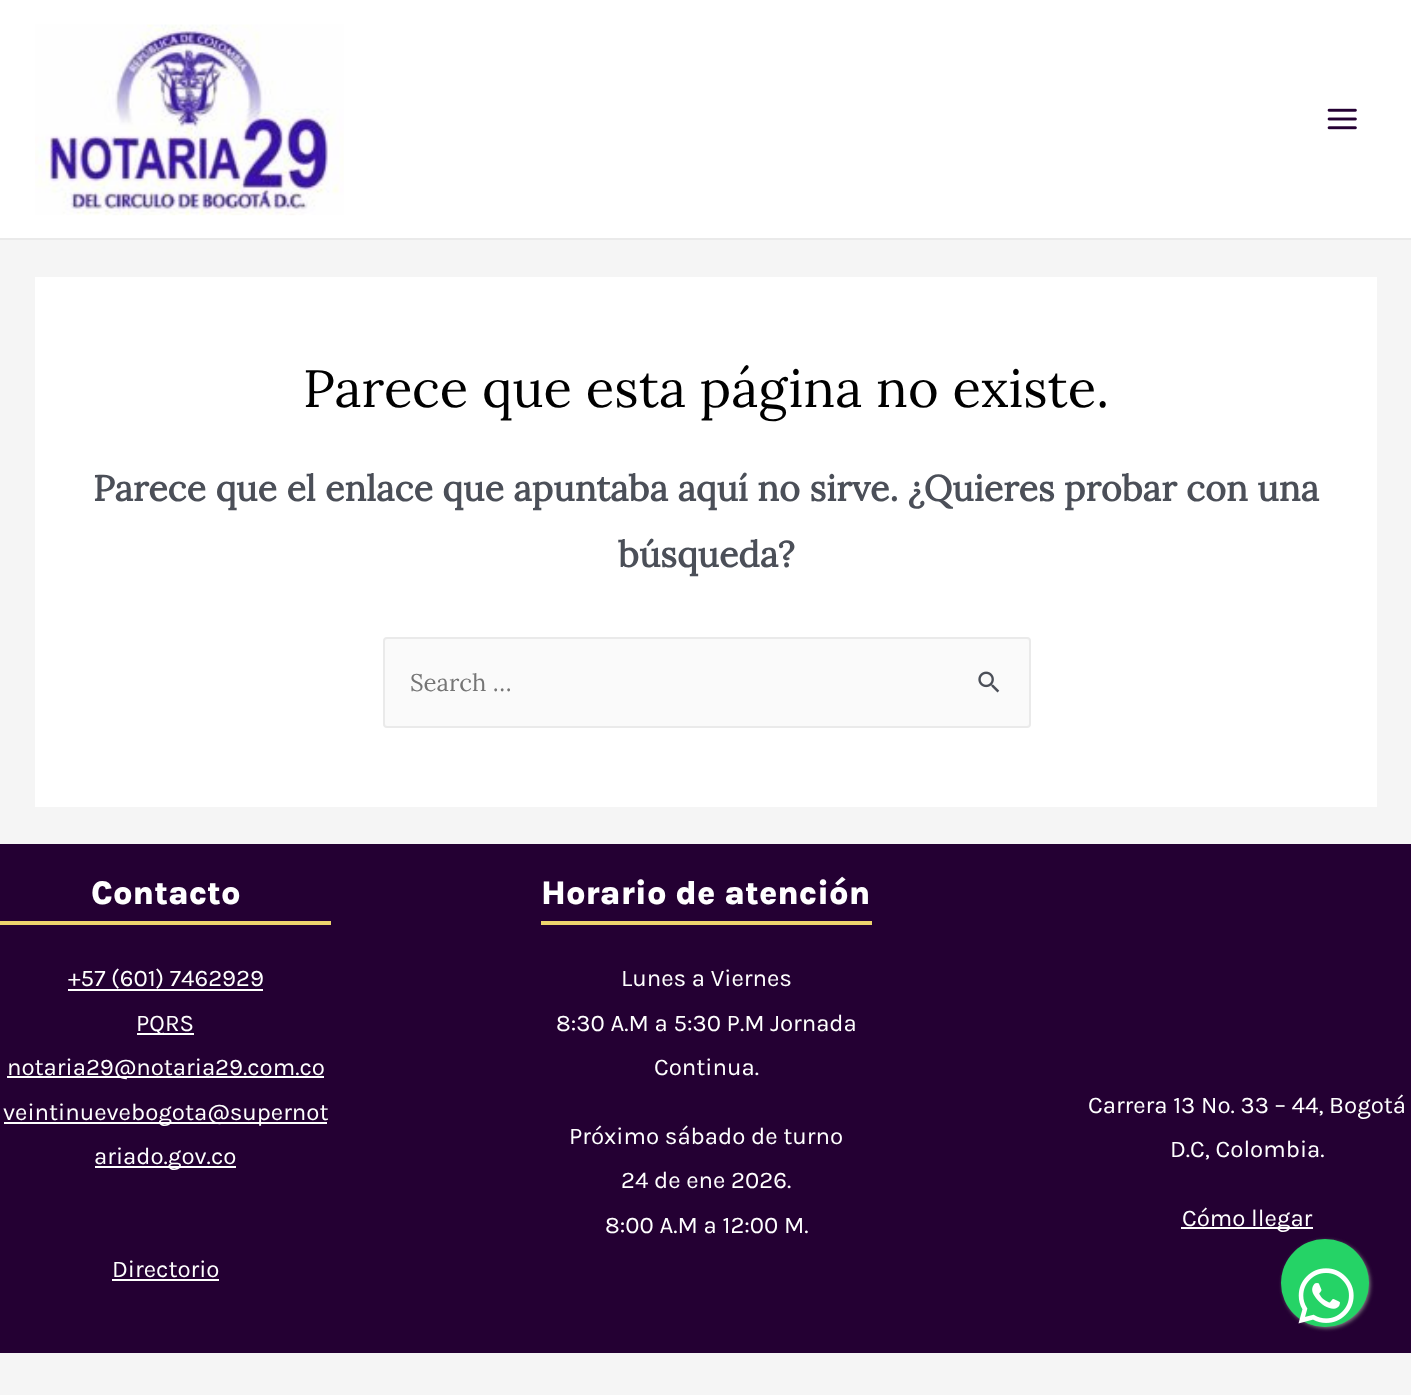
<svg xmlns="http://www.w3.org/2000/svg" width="1411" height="1395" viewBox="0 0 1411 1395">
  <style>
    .t1 { font: 52.5px Lora; fill: #000; }
    .t2 { font: bold 35.9px Lora; fill: #4b4f58; }
    .t3 { font: 24px Lora; fill: #757575; }
    .t4 { font: 800 33.5px Karla; fill: #fff; }
    .t5 { font: 24px Karla; fill: #fff; }
  </style>
  <rect width="100%" height="100%" fill="#f5f5f5"/>
  <rect x="0" y="0" width="1411" height="238" fill="#fff"/>
  <rect x="0" y="238" width="1411" height="2" fill="#eaeaea"/>
  <image x="35" y="24" width="309" height="192" href="images/1.png"/>
  <image x="1327" y="108" width="30" height="22" href="images/2.png"/>
  <rect x="35" y="277" width="1342" height="530" fill="#fff"/>
  <text x="303" y="407" class="t1">Parece que esta página no existe.</text>
  <text x="93" y="501" class="t2">Parece que el enlace que apuntaba aquí no sirve. ¿Quieres probar con una</text>
  <text x="618" y="567" class="t2">búsqueda?</text>
  <rect x="384" y="638" width="646" height="89" rx="3" fill="#fafafa" stroke="#eaeaea" stroke-width="2"/>
  <text x="410" y="691" class="t3">Search …</text>
  <image x="978" y="671" width="22" height="22" href="images/3.png"/>
  <rect x="0" y="844" width="1411" height="509" fill="#240033"/>
  <rect x="0" y="921" width="331" height="4" fill="#edd46d"/>
  <text x="91" y="904" class="t4">Contacto</text>
  <text x="68" y="986" class="t5">+57 (601) 7462929</text>
  <rect x="68" y="989" width="195" height="2" fill="#fff"/>
  <rect x="137" y="1033" width="57" height="2" fill="#fff"/>
  <text x="136" y="1031" class="t5">PQRS</text>
  <rect x="7" y="1076" width="317" height="2" fill="#fff"/>
  <text x="7" y="1075" class="t5">notaria29@notaria29.com.co</text>
  <rect x="4" y="1122" width="323" height="2" fill="#fff"/>
  <text x="3" y="1120" class="t5">veintinuevebogota@supernot</text>
  <rect x="95" y="1166" width="141" height="2" fill="#fff"/>
  <text x="94" y="1164" class="t5">ariado.gov.co</text>
  <text x="112" y="1277" class="t5">Directorio</text>
  <rect x="112" y="1279" width="107" height="2" fill="#fff"/>
  <rect x="541" y="921" width="331" height="4" fill="#edd46d"/>
  <text x="541" y="904" class="t4">Horario de atención</text>
  <text x="621" y="986" class="t5">Lunes a Viernes</text>
  <text x="556" y="1031" class="t5">8:30 A.M a 5:30 P.M Jornada</text>
  <text x="654" y="1075" class="t5">Continua.</text>
  <text x="569" y="1144" class="t5">Próximo sábado de turno</text>
  <text x="621" y="1188" class="t5">24 de ene 2026.</text>
  <text x="605" y="1233" class="t5">8:00 A.M a 12:00 M.</text>
  <text x="1088" y="1113" class="t5">Carrera 13 No. 33 – 44, Bogotá</text>
  <text x="1170" y="1157" class="t5">D.C, Colombia.</text>
  <rect x="1181" y="1227" width="132" height="2" fill="#fff"/>
  <text x="1182" y="1226" class="t5">Cómo llegar</text>
  <rect x="1283" y="1241" width="87" height="87" rx="43.5" fill="#888" filter="blur(2px)"/>
  <circle cx="1325" cy="1283" r="44" fill="#25d366"/>
  <image x="1298" y="1268" width="56" height="56" href="images/4.png"/>
</svg>
